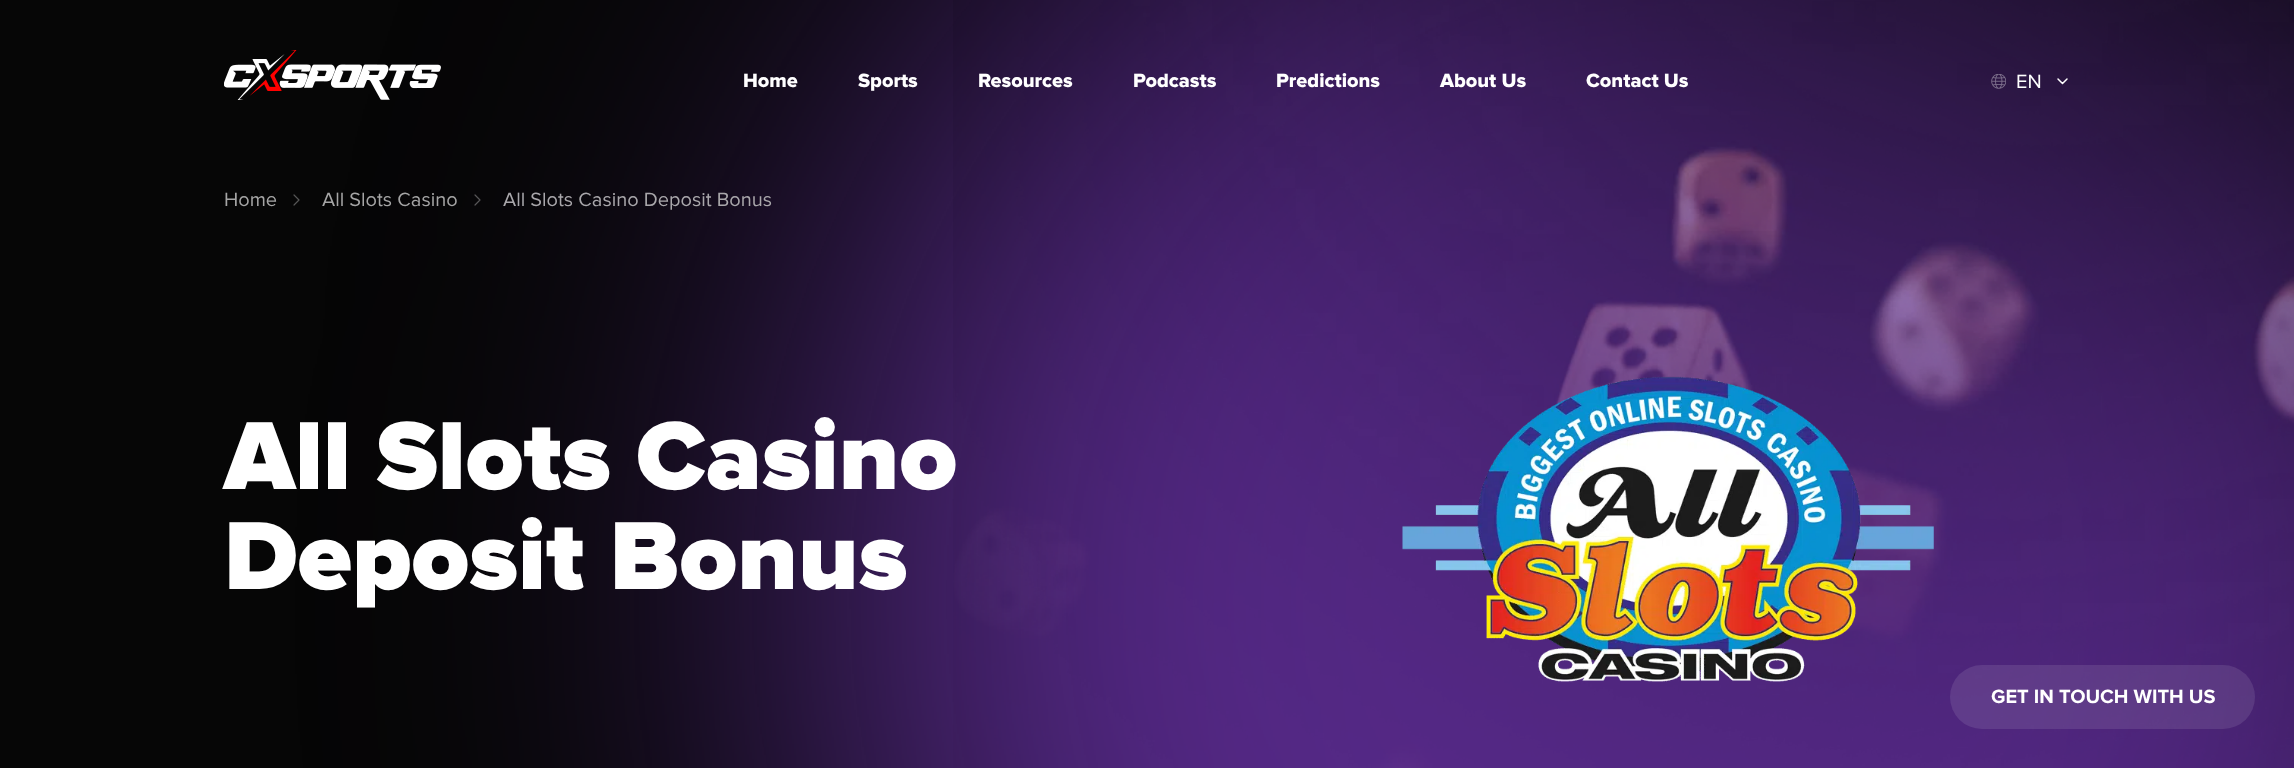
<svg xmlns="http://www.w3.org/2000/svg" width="2294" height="768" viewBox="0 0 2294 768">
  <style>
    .t1 { font: 800 20px Proxima Nova; fill: #fff; }
    .t2 { font: 20px Proxima Nova; fill: #fff; }
    .t3 { font: 20px Proxima Nova; fill: #a5a5a5; }
    .t4 { font: 20px Proxima Nova; fill: #a9a7ab; }
    .t5 { font: 900 100px Proxima Nova; fill: #fff; }
    .t6 { font: bold 20px Proxima Nova; fill: #fff; }
  </style>
  <rect width="100%" height="100%" fill="#060606"/>
  <rect x="820" y="-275" width="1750" height="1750" rx="875" fill="#592b8d" filter="blur(225px)"/>
  <image x="224" y="50" width="217" height="50" href="images/1.png"/>
  <text x="743" y="87" class="t1">Home</text>
  <text x="858" y="87" class="t1">Sports</text>
  <image x="953" y="0" width="1341" height="768" href="images/4.png"/>
  <text x="978" y="87" class="t1">Resources</text>
  <text x="1133" y="87" class="t1">Podcasts</text>
  <text x="1276" y="87" class="t1">Predictions</text>
  <text x="1440" y="87" class="t1">About Us</text>
  <text x="1586" y="87" class="t1">Contact Us</text>
  <image x="1991" y="74" width="15" height="15" href="images/2.png"/>
  <text x="2016" y="88" class="t2">EN</text>
  <path d="M2058 79L2062.5 83.5L2067 79" fill="none" stroke="#fff" stroke-width="1.5" stroke-linecap="round" stroke-linejoin="round"/>
  <text x="224" y="206" class="t3">Home</text>
  <path d="M294 205L299 200L294 195" fill="none" stroke="#565656" stroke-width="1.2" stroke-linecap="round" stroke-linejoin="round"/>
  <text x="322" y="206" class="t3">All Slots Casino</text>
  <path d="M475 205L480 200L475 195" fill="none" stroke="#575658" stroke-width="1.2" stroke-linecap="round" stroke-linejoin="round"/>
  <text x="503" y="206" class="t4">All Slots Casino Deposit Bonus</text>
  <text x="224" y="489" class="t5">All Slots Casino</text>
  <text x="224" y="589" class="t5">Deposit Bonus</text>
  <image x="1402" y="376" width="532" height="306" href="images/3.png"/>
  <rect x="1950" y="665" width="305" height="64" rx="32" fill="#ffffff1a"/>
  <text x="1991" y="703" class="t6">GET IN TOUCH WITH US</text>
</svg>
